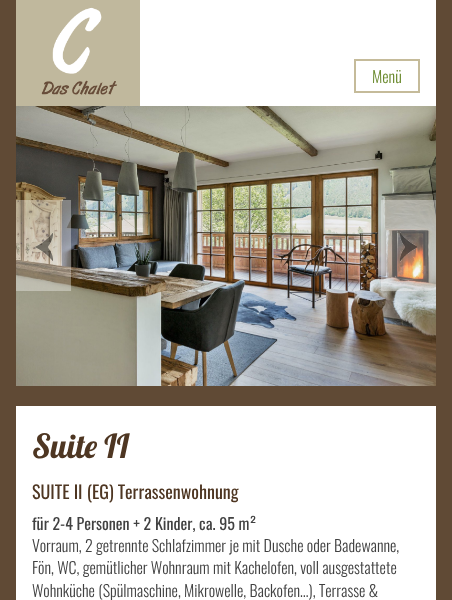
<svg xmlns="http://www.w3.org/2000/svg" width="452" height="600" viewBox="0 0 452 600">
  <style>
    .t1 { font: 300 16px Oswald; fill: #6a8a2e; }
    .t2 { font: 33px Lobster; fill: #4e3622; }
    .t3 { font: 18px Oswald; fill: #4e3622; }
    .t4 { font: 16px Oswald; fill: #414141; }
    .t5 { font: 300 16px Oswald; fill: #414141; }
  </style>
  <rect width="100%" height="100%" fill="#604a35"/>
  <rect x="140" y="0" width="296" height="106" fill="#fff"/>
  <rect x="16" y="0" width="124" height="106" fill="#c0b89d"/>
  <image x="41" y="7" width="76" height="88" href="images/1.png"/>
  <rect x="355" y="60" width="64" height="32" fill="none" stroke="#c5bb9a" stroke-width="2"/>
  <text x="372" y="83" class="t1">Menü</text>
  <image x="16" y="106" width="420" height="280" href="images/2.png"/>
  <rect x="16" y="200" width="55" height="91" fill="#ffffff59"/>
  <image x="35" y="232" width="18" height="29" href="images/3.png"/>
  <rect x="381" y="200" width="55" height="91" fill="#ffffff59"/>
  <image x="400" y="232" width="18" height="30" href="images/4.png"/>
  <rect x="16" y="406" width="420" height="194" fill="#fff"/>
  <text x="32" y="458" class="t2">Suite II</text>
  <text x="32" y="499" class="t3">SUITE II (EG) Terrassenwohnung</text>
  <text x="32" y="530" class="t4">für 2-4 Personen + 2 Kinder, ca. 95 m²</text>
  <text x="32" y="552" class="t5">Vorraum, 2 getrennte Schlafzimmer je mit Dusche oder Badewanne,</text>
  <text x="32" y="574" class="t5">Fön, WC, gemütlicher Wohnraum mit Kachelofen, voll ausgestattete</text>
  <text x="32" y="597" class="t5">Wohnküche (Spülmaschine, Mikrowelle, Backofen…), Terrasse &amp;</text>
</svg>
